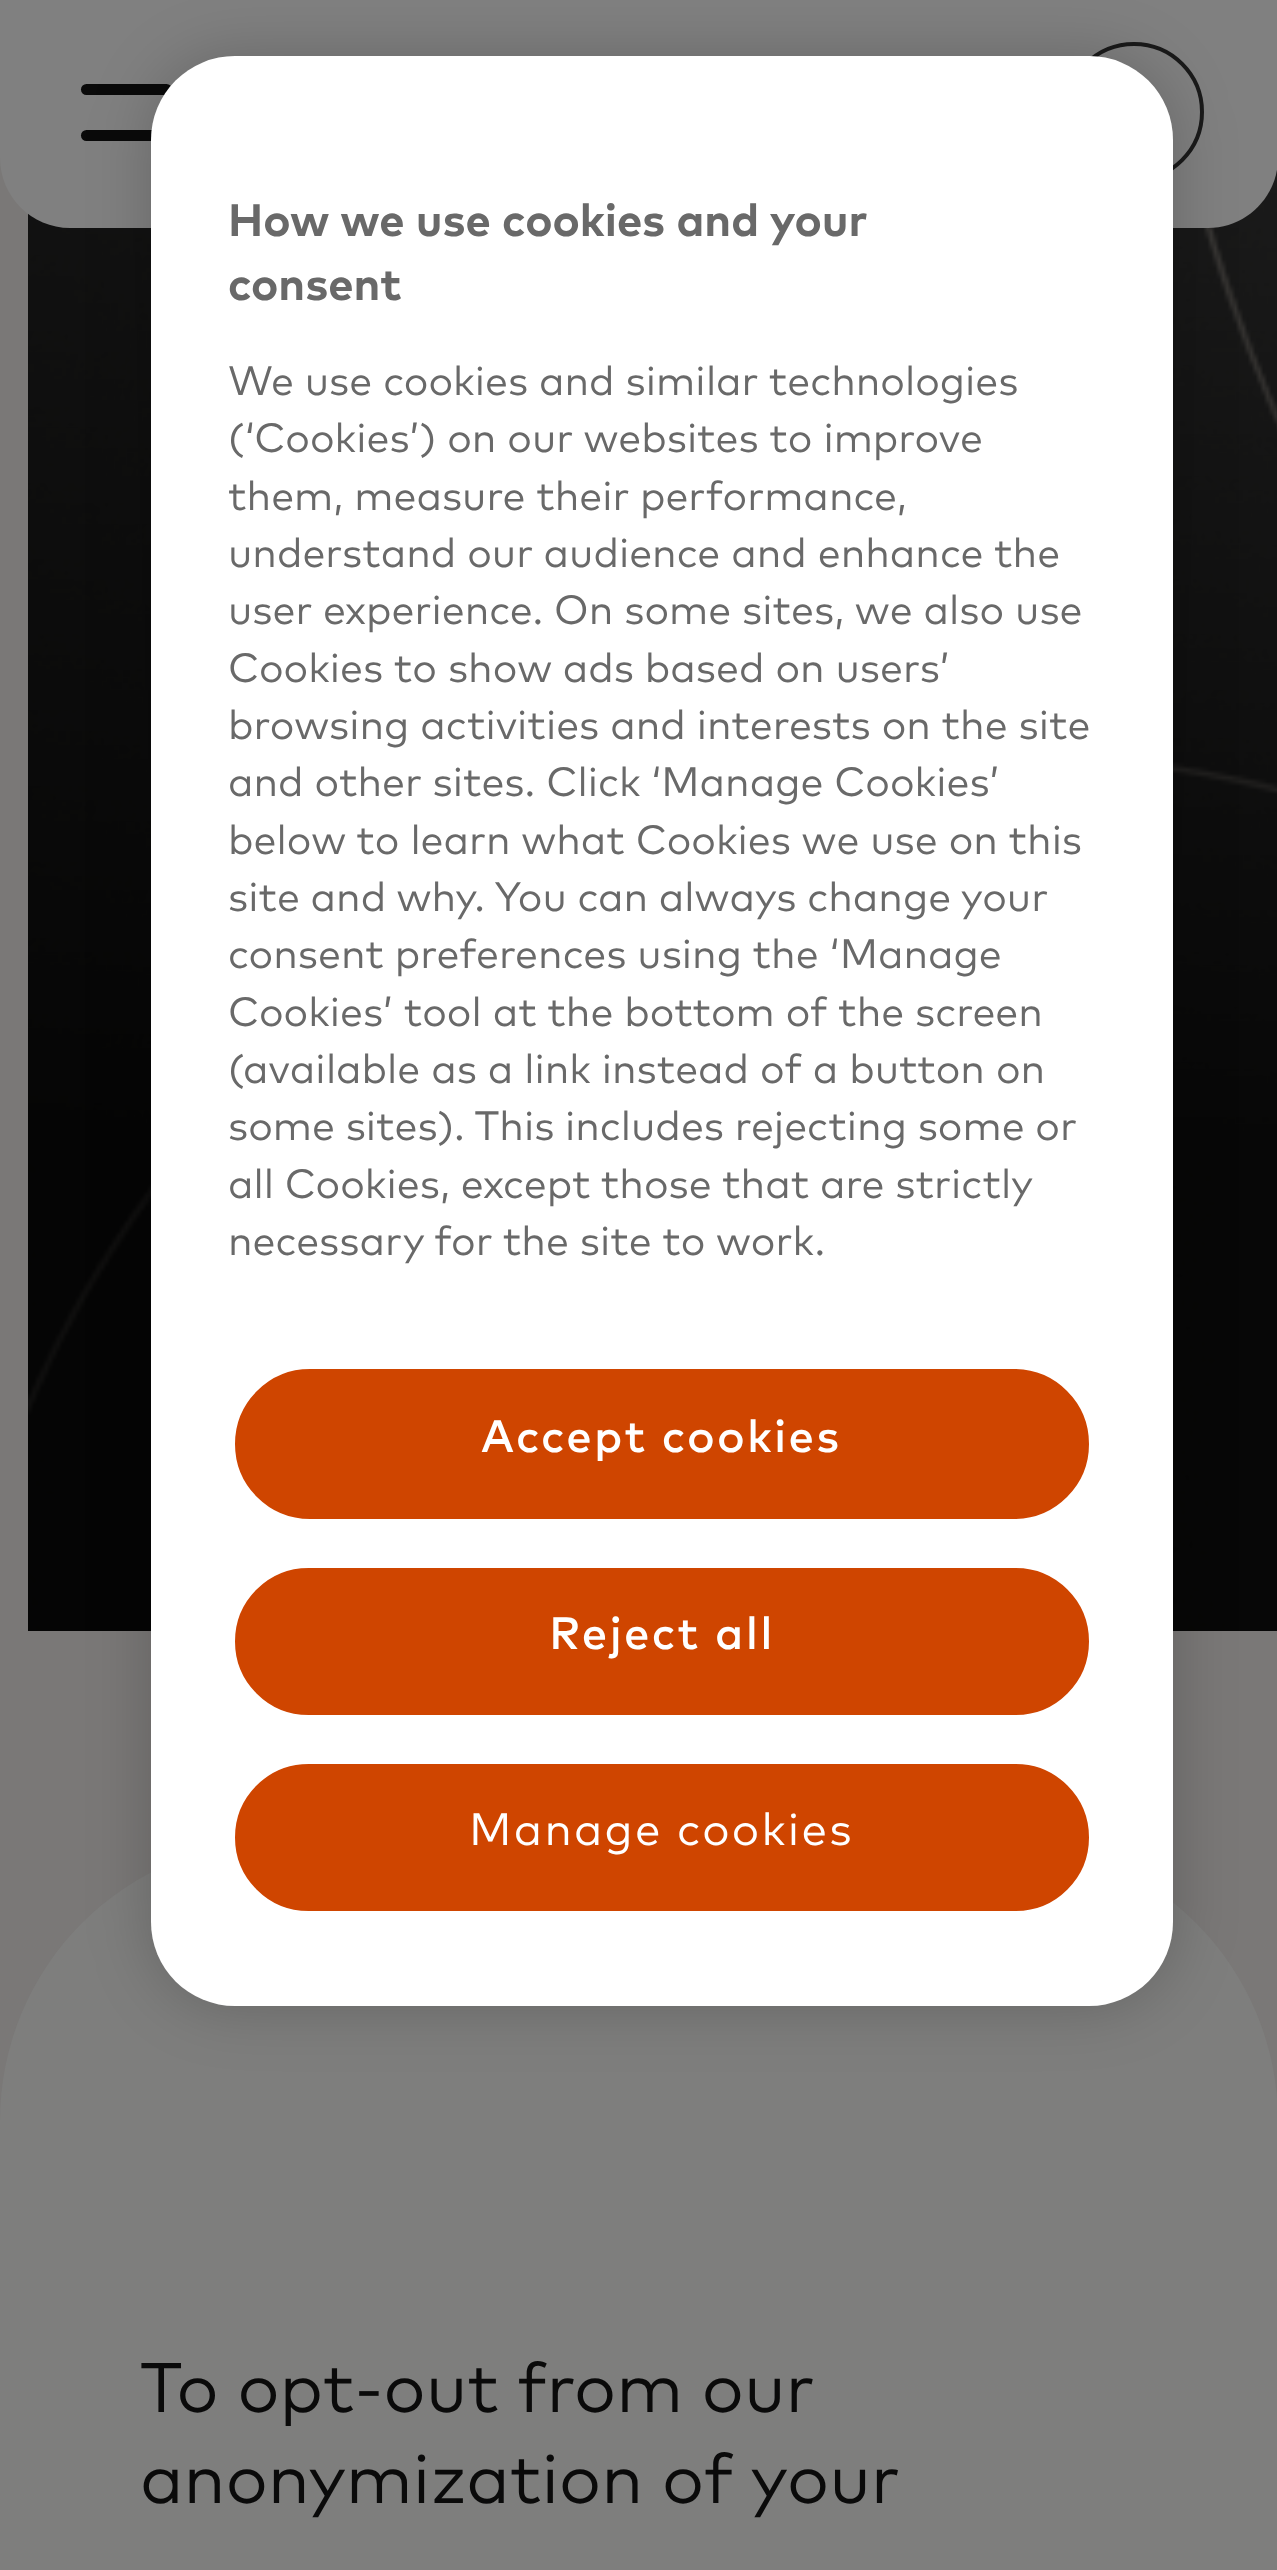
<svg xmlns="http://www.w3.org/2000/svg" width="1277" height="2570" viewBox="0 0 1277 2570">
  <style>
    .t1 { font: bold 45.5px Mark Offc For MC; fill: #696969; }
    .t2 { font: 40.95px Mark Offc For MC; fill: #696969; }
    .t3 { font: 500 45.5px Mark Offc For MC; letter-spacing: 2.25px; fill: #fff; }
    .t4 { font: 45.5px Mark Offc For MC; letter-spacing: 2.25px; fill: #fff; }
    .t5 { font: 70px Mark Offc For MC; fill: #0a0a0a; }
  </style>
  <defs>
    <clipPath id="clip1"><path d="M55 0H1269V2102H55ZM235 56H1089C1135.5 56 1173 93.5 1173 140V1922C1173 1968.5 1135.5 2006 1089 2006H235C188.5 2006 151 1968.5 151 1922V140C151 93.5 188.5 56 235 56Z" clip-rule="evenodd"/></clipPath>
  </defs>
  <rect width="100%" height="100%" fill="#7a7877"/>
  <image x="28" y="169" width="1249" height="1462" href="images/1.png"/>
  <path d="M0 0H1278V158C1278 196.5 1246.5 228 1208 228H70C31.5 228 0 196.5 0 158Z" fill="#808080"/>
  <rect x="81" y="84" width="91" height="11" rx="5.5" fill="#0a0a0a"/>
  <rect x="81" y="130" width="91" height="11" rx="5.5" fill="#0a0a0a"/>
  <circle cx="1134" cy="112" r="68" fill="none" stroke="#1a1a1a" stroke-width="4"/>
  <rect x="0" y="1841" width="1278" height="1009" rx="280" fill="#7e7e7d"/>
  <g clip-path="url(#clip1)">
    <rect x="151" y="56" width="1022" height="1950" rx="84" fill="#00000033" filter="blur(31.5px)"/>
  </g>
  <rect x="151" y="56" width="1022" height="1950" rx="84" fill="#fff"/>
  <text x="228" y="236" class="t1">How we use cookies and your</text>
  <text x="228" y="300" class="t1">consent</text>
  <text x="228" y="395" class="t2">We use cookies and similar technologies</text>
  <text x="228" y="452" class="t2">(‘Cookies’) on our websites to improve</text>
  <text x="228" y="510" class="t2">them, measure their performance,</text>
  <text x="228" y="567" class="t2">understand our audience and enhance the</text>
  <text x="228" y="624" class="t2">user experience. On some sites, we also use</text>
  <text x="228" y="682" class="t2">Cookies to show ads based on users’</text>
  <text x="228" y="739" class="t2">browsing activities and interests on the site</text>
  <text x="228" y="796" class="t2">and other sites. Click ‘Manage Cookies’</text>
  <text x="228" y="854" class="t2">below to learn what Cookies we use on this</text>
  <text x="228" y="911" word-spacing="-0.25" class="t2">site and why. You can always change your</text>
  <text x="228" y="968" class="t2">consent preferences using the ‘Manage</text>
  <text x="228" y="1026" class="t2">Cookies’ tool at the bottom of the screen</text>
  <text x="228" y="1083" class="t2">(available as a link instead of a button on</text>
  <text x="228" y="1140" word-spacing="-0.25" class="t2">some sites). This includes rejecting some or</text>
  <text x="228" y="1198" word-spacing="-0.25" class="t2">all Cookies, except those that are strictly</text>
  <text x="228" y="1255" class="t2">necessary for the site to work.</text>
  <rect x="231.5" y="1365.5" width="861" height="157" rx="78.5" fill="#cf4500" stroke="#fff" stroke-width="7"/>
  <text x="481" y="1452" class="t3">Accept cookies</text>
  <rect x="231.5" y="1564.5" width="861" height="154" rx="77" fill="#cf4500" stroke="#fff" stroke-width="7"/>
  <text x="549" y="1649" class="t3">Reject all</text>
  <rect x="231.5" y="1760.5" width="861" height="154" rx="77" fill="#cf4500" stroke="#fff" stroke-width="7"/>
  <text x="469" y="1845" class="t4">Manage cookies</text>
  <text x="140" y="2412" class="t5">To opt-out from our</text>
  <text x="140" y="2503" class="t5">anonymization of your</text>
</svg>
